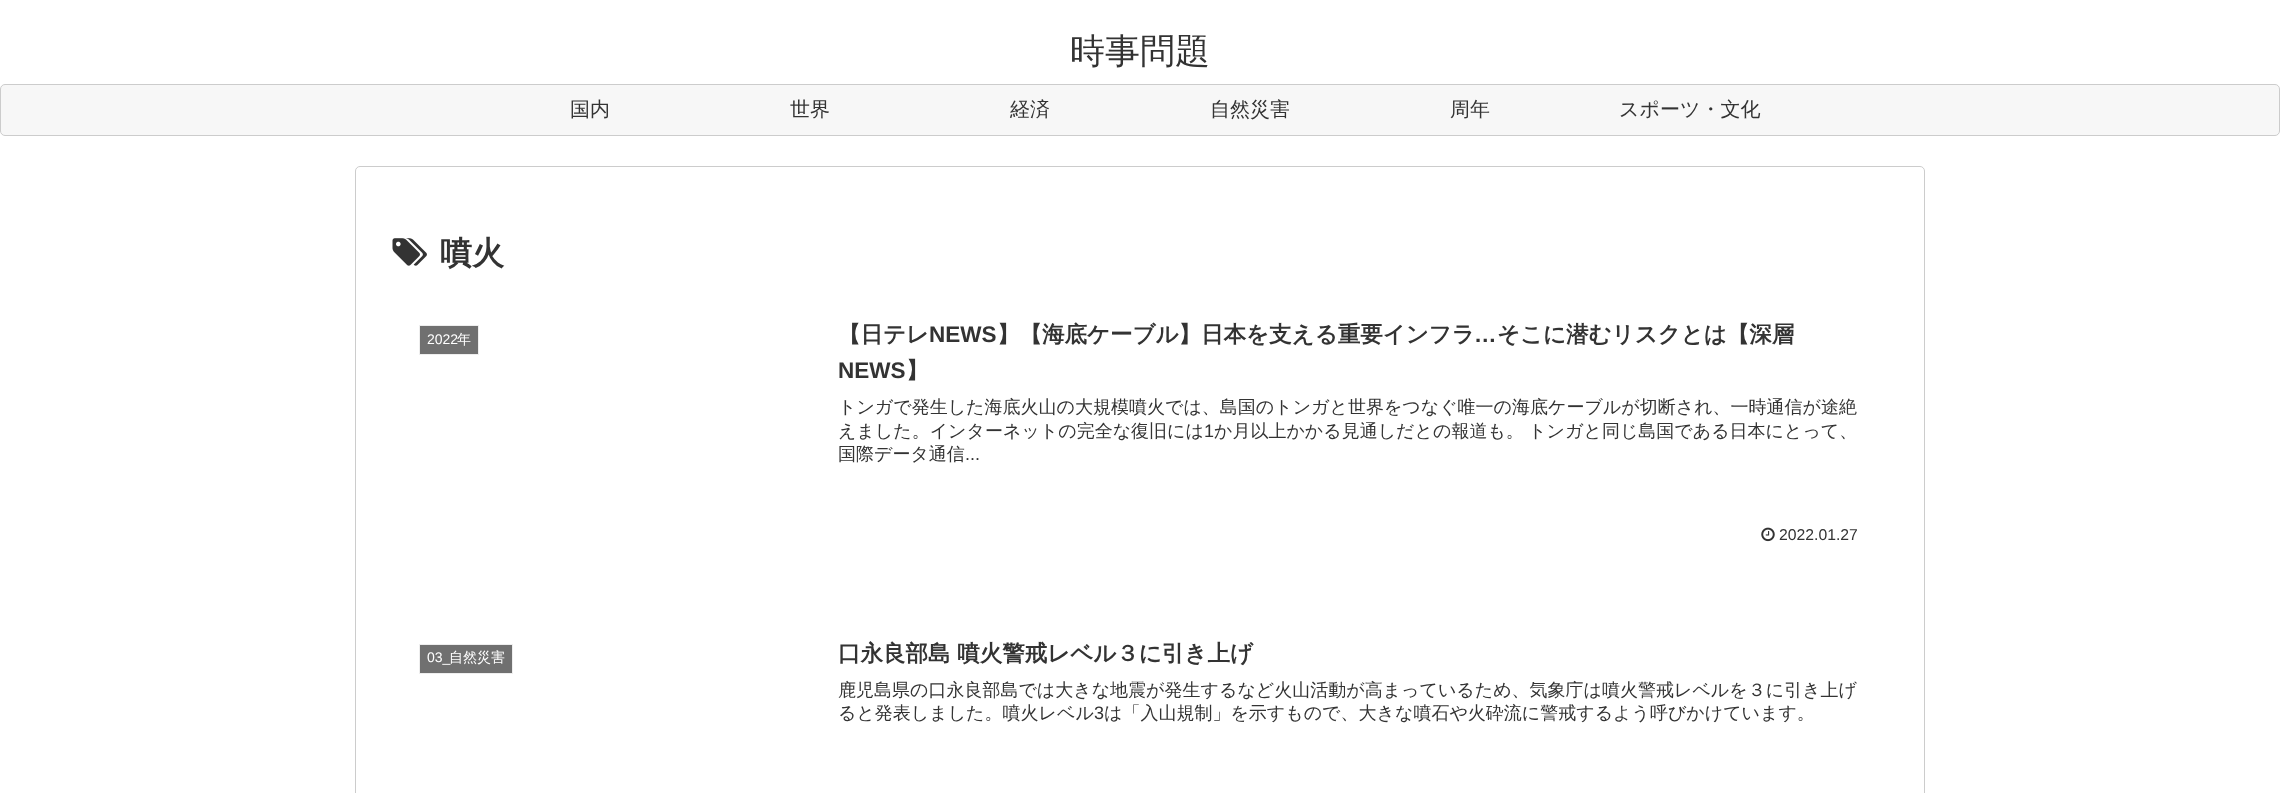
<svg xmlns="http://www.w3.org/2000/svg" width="2280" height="793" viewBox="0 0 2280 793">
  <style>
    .t1 { font: 500 35px WenQuanYi Zen Hei; fill: #333; }
    .t2 { font: 500 20px WenQuanYi Zen Hei; fill: #333; }
    .t3 { font: bold 32px WenQuanYi Zen Hei; fill: #333; }
    .t4 { font: 14px Liberation Sans; fill: #fff; }
    .t5 { font: 500 14px WenQuanYi Zen Hei; fill: #fff; }
    .t6 { font: bold 22.5px WenQuanYi Zen Hei; fill: #333; }
    .t7 { font: bold 22.5px Liberation Sans; fill: #333; }
    .t8 { font: 500 18px WenQuanYi Zen Hei; fill: #333; }
    .t9 { font: 18px Liberation Sans; fill: #333; }
    .t10 { font: 15.75px Liberation Sans; fill: #333; }
  </style>
  <rect width="100%" height="100%" fill="#fff"/>
  <text x="1070" y="63" class="t1">時事問題</text>
  <rect x="0.5" y="84.5" width="2279" height="51" rx="4.5" fill="#f7f7f7" stroke="#ccc"/>
  <text x="570" y="116" class="t2">国内</text>
  <text x="790" y="116" class="t2">世界</text>
  <text x="1010" y="116" class="t2">経済</text>
  <text x="1210" y="116" class="t2">自然災害</text>
  <text x="1450" y="116" class="t2">周年</text>
  <text x="1619" y="116" class="t2">スポーツ・文化</text>
  <rect x="355.5" y="166.5" width="1569" height="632" rx="4.5" fill="none" stroke="#ccc"/>
  <image x="392" y="238" width="35" height="28" href="images/1.png"/>
  <text x="440" y="264" class="t3">噴火</text>
  <rect x="419.5" y="325.5" width="59" height="29" fill="#707070" stroke="#eee"/>
  <text x="427" y="344" class="t4">2022</text>
  <text x="457" y="344" class="t5">年</text>
  <text x="838" y="342" class="t6">【日テレ</text>
  <text x="929" y="342" class="t7">NEWS</text>
  <text x="997" y="342" class="t6">】【海底ケーブル】日本を支える重要インフラ</text>
  <text x="1474" y="342" class="t7">…</text>
  <text x="1497" y="342" class="t6">そこに潜むリスクとは【深層</text>
  <text x="838" y="378" class="t7">NEWS</text>
  <text x="906" y="378" class="t6">】</text>
  <text x="838" y="413" class="t8">トンガで発生した海底火山の大規模噴火では、島国のトンガと世界をつなぐ唯一の海底ケーブルが切断され、一時通信が途絶</text>
  <text x="838" y="437" class="t8">えました。インターネットの完全な復旧には</text>
  <text x="1204" y="437" class="t9">1</text>
  <text x="1214" y="437" word-spacing="-1" class="t8">か月以上かかる見通しだとの報道も。 トンガと同じ島国である日本にとって、</text>
  <text x="838" y="460" class="t8">国際データ通信</text>
  <text x="965" y="460" class="t9">...</text>
  <image x="1761" y="527" width="14" height="15" href="images/2.png"/>
  <text x="1779" y="540" class="t10">2022.01.27</text>
  <rect x="419.5" y="644.5" width="93" height="29" fill="#707070" stroke="#eee"/>
  <text x="427" y="662" class="t4">03_</text>
  <text x="449" y="662" class="t5">自然災害</text>
  <text x="838" y="661" class="t6">口永良部島 噴火警戒レベル３に引き上げ</text>
  <text x="838" y="696" class="t8">鹿児島県の口永良部島では大きな地震が発生するなど火山活動が高まっているため、気象庁は噴火警戒レベルを３に引き上げ</text>
  <text x="838" y="719" class="t8">ると発表しました。噴火レベル</text>
  <text x="1094" y="719" class="t9">3</text>
  <text x="1104" y="719" class="t8">は「入山規制」を示すもので、大きな噴石や火砕流に警戒するよう呼びかけています。</text>
</svg>
